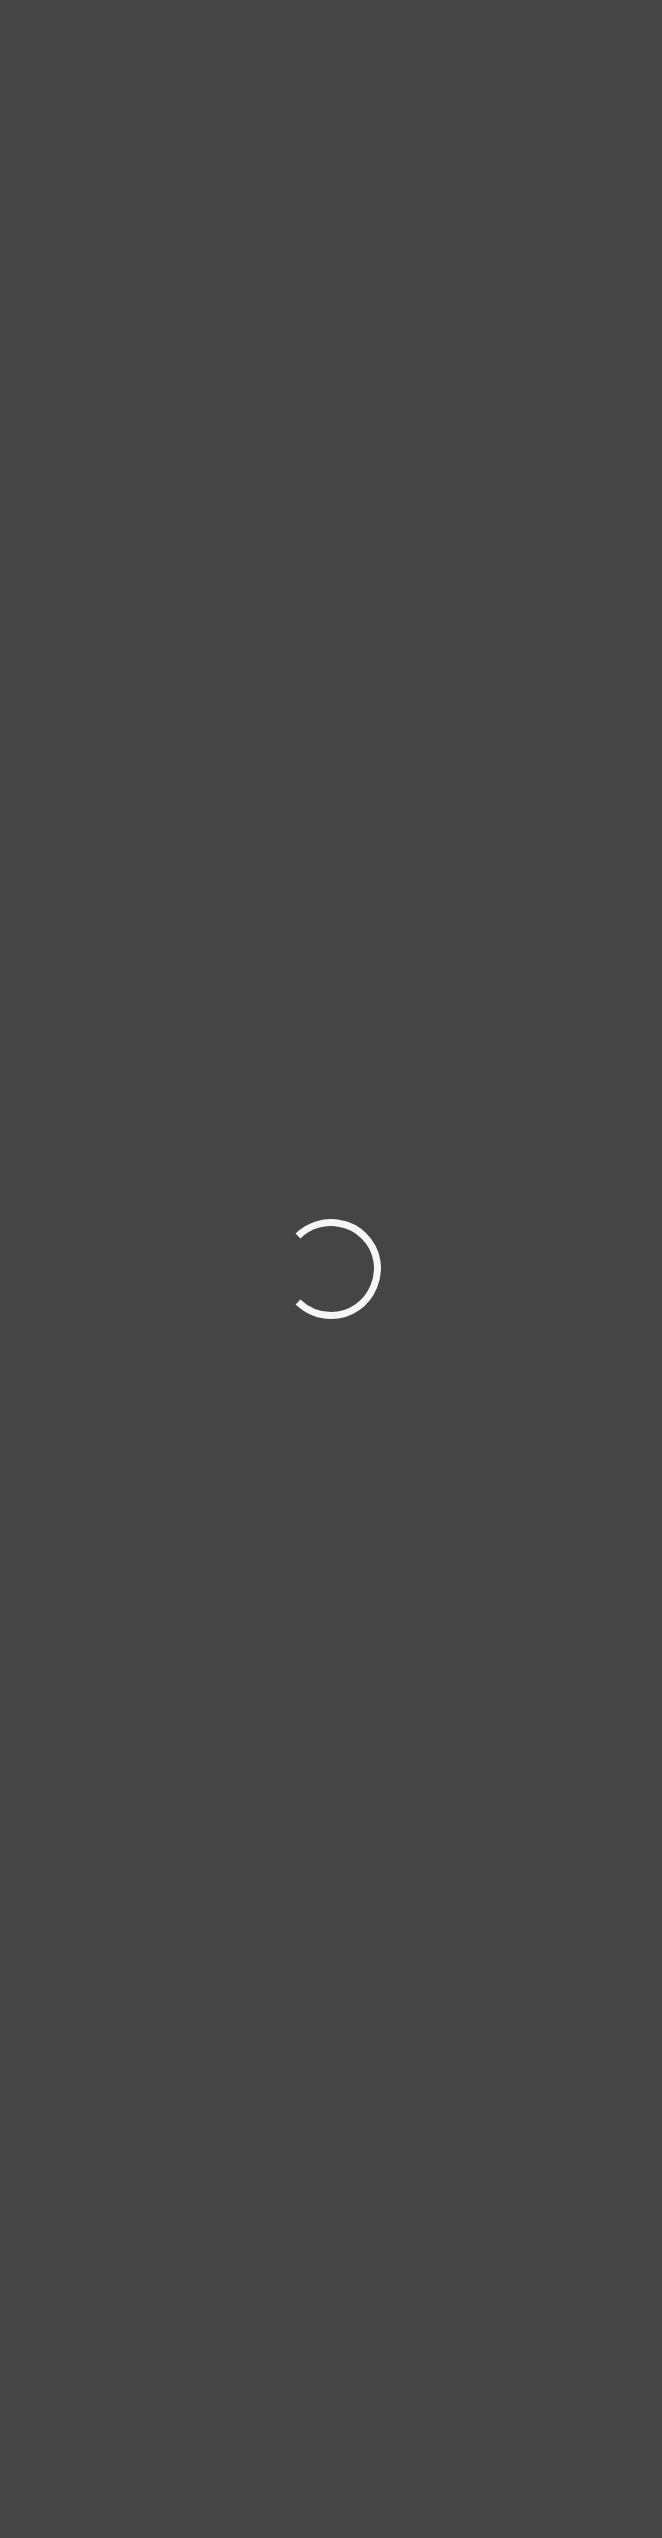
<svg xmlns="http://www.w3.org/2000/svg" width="662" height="2538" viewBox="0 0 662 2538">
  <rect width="100%" height="100%" fill="#454545"/>
  <path d="M298 1236C309 1225 325 1220.5 340 1223.5C349 1225 357.5 1229.5 364 1236C393 1265 372 1315.5 331 1315.5C319 1315.5 307 1310.5 298 1302" fill="none" stroke="#f5f5f5" stroke-width="7"/>
</svg>
